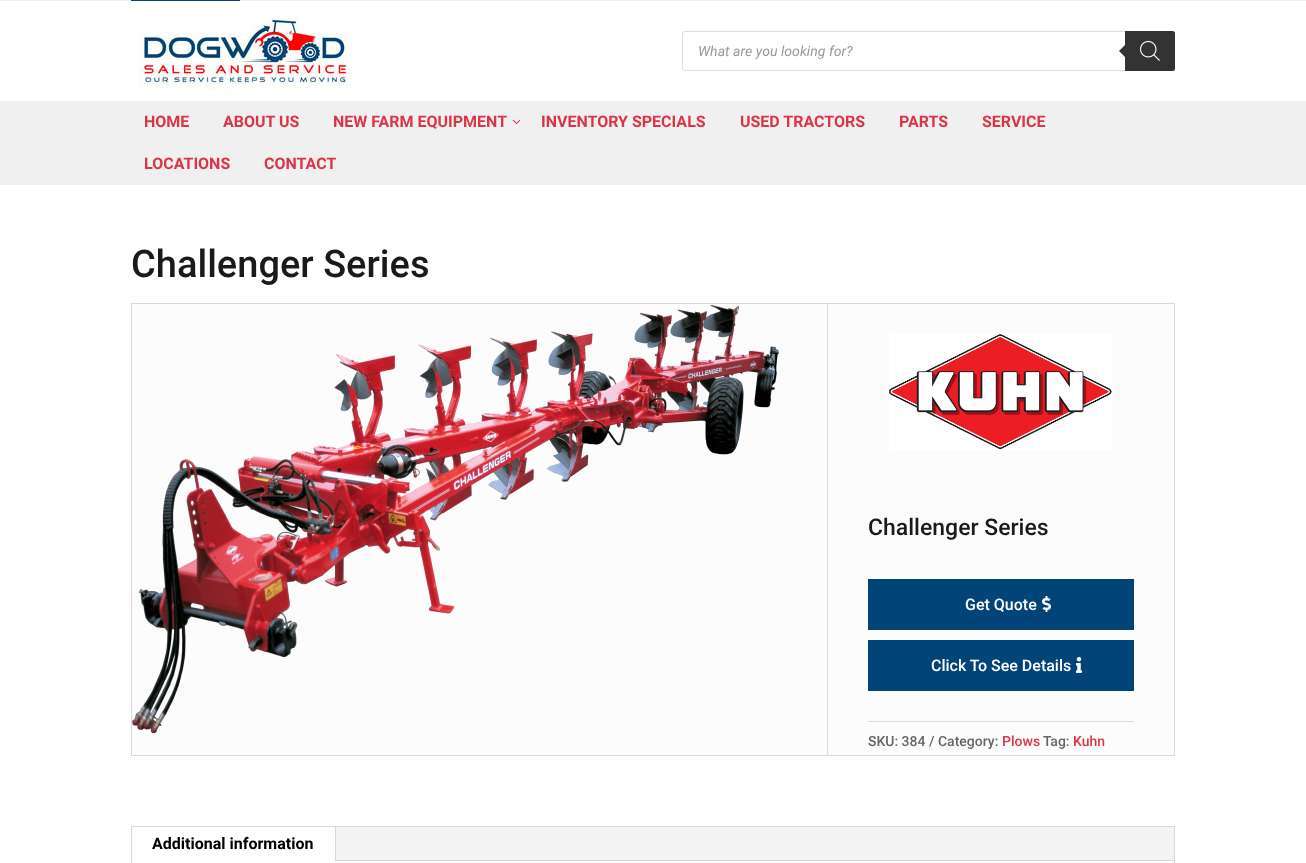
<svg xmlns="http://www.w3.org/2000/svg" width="1306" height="863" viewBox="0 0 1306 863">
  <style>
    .t1 { font: italic 14px Roboto; fill: #999; }
    .t2 { font: bold 16px Roboto; fill: #dc3545; }
    .t3 { font: 500 38px Roboto; fill: #1c1919; }
    .t4 { font: 500 23px Roboto; fill: #1c1919; }
    .t5 { font: 500 16px Roboto; fill: #fff; }
    .t6 { font: 500 14px Roboto; fill: #666; }
    .t7 { font: 500 14px Roboto; fill: #dc3545; }
    .t8 { font: bold 16px Roboto; fill: #000; }
  </style>
  <rect width="100%" height="100%" fill="#fff"/>
  <rect x="0" y="0" width="1306" height="1" fill="#f0f0f0"/>
  <rect x="131" y="0" width="109" height="1" fill="#004478"/>
  <image x="139" y="17" width="208" height="72" href="images/1.png"/>
  <rect x="682.5" y="31.5" width="492" height="39" rx="2.5" fill="none" stroke="#ddd"/>
  <text x="698" y="56" class="t1">What are you looking for?</text>
  <path d="M1125 31H1173C1174 31 1175 32 1175 33V69C1175 70 1174 71 1173 71H1125Z" fill="#333"/>
  <path d="M1127 43V59L1119 51Z" fill="#333"/>
  <image x="1140" y="41" width="20" height="20" href="images/2.png"/>
  <rect x="0" y="101" width="1306" height="84" fill="#f0f0f0"/>
  <text x="144" y="127" class="t2">HOME</text>
  <text x="223" y="127" class="t2">ABOUT US</text>
  <text x="333" y="127" class="t2">NEW FARM EQUIPMENT</text>
  <image x="512" y="119" width="9" height="5" href="images/3.png"/>
  <text x="541" y="127" class="t2">INVENTORY SPECIALS</text>
  <text x="740" y="127" class="t2">USED TRACTORS</text>
  <text x="899" y="127" class="t2">PARTS</text>
  <text x="982" y="127" class="t2">SERVICE</text>
  <text x="144" y="169" class="t2">LOCATIONS</text>
  <text x="264" y="169" class="t2">CONTACT</text>
  <text x="131" y="277" class="t3">Challenger Series</text>
  <rect x="131.5" y="303.5" width="1043" height="452" fill="#fcfcfc" stroke="#d9d9d9"/>
  <image x="132" y="304" width="647" height="430" href="images/4.png"/>
  <rect x="827" y="304" width="1" height="451" fill="#d9d9d9"/>
  <image x="889" y="334" width="223" height="116" href="images/5.png"/>
  <text x="868" y="535" class="t4">Challenger Series</text>
  <rect x="868" y="579" width="266" height="51" fill="#004478"/>
  <text x="965" y="610" class="t5">Get Quote</text>
  <image x="1042" y="596" width="9" height="16" href="images/6.png"/>
  <rect x="868" y="640" width="266" height="51" fill="#004478"/>
  <text x="931" y="671" class="t5">Click To See Details</text>
  <image x="1076" y="657" width="6" height="16" href="images/7.png"/>
  <rect x="868" y="721" width="266" height="1" fill="#dadada"/>
  <text x="868" y="746" class="t6">SKU: 384 / Category:</text>
  <text x="1002" y="746" class="t7">Plows</text>
  <text x="1043" y="746" class="t6">Tag:</text>
  <text x="1073" y="746" class="t7">Kuhn</text>
  <rect x="131.5" y="826.5" width="1043" height="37" fill="none" stroke="#d9d9d9"/>
  <rect x="336" y="827" width="838" height="33" fill="#f4f4f4"/>
  <rect x="335" y="827" width="1" height="34" fill="#d9d9d9"/>
  <text x="152" y="849" class="t8">Additional information</text>
  <rect x="336" y="860" width="838" height="1" fill="#d9d9d9"/>
</svg>
